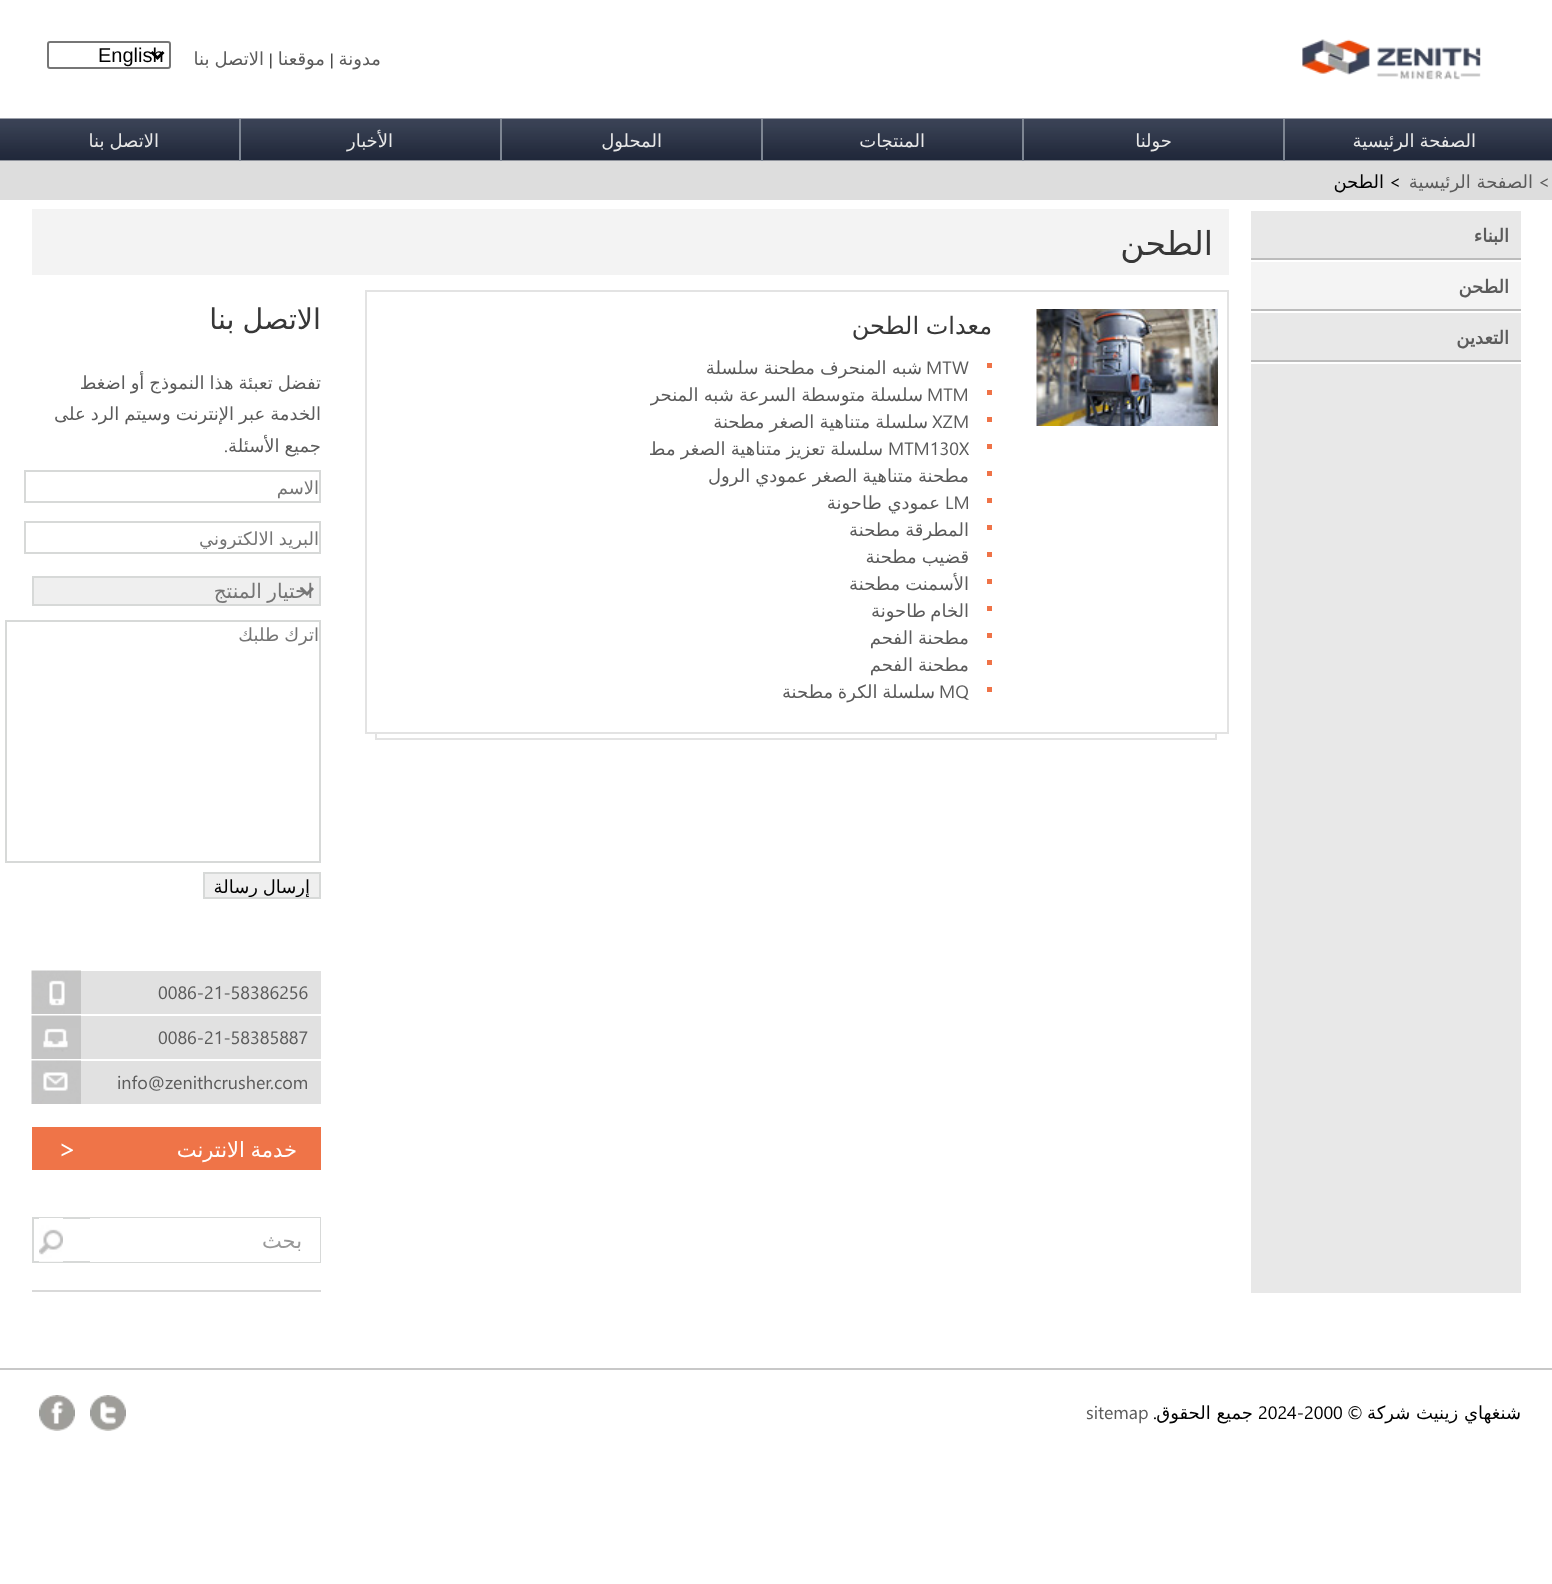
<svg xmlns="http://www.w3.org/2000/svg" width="1552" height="1584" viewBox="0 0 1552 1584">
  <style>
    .t1 { font: 18px DejaVu Sans; direction: rtl; fill: #5b5b5b; }
    .t2 { font: 15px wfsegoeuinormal; fill: #000; }
    .t3 { font: 20px Liberation Sans; fill: #000; }
    .t4 { font: 18px DejaVu Sans; direction: rtl; fill: #e8e8e8; }
    .t5 { font: 18px wfsegoeuinormal; direction: rtl; fill: #5b5b5b; }
    .t6 { font: 18px wfsegoeuinormal; direction: rtl; fill: #000; }
    .t7 { font: 18px DejaVu Sans; direction: rtl; fill: #000; }
    .t8 { font: bold 18px DejaVu Sans; direction: rtl; fill: #5b5b5b; }
    .t9 { font: 33px DejaVu Sans; direction: rtl; fill: #373737; }
    .t10 { font: 24px DejaVu Sans; direction: rtl; fill: #373737; }
    .t11 { font: 18px wfsegoeuinormal; fill: #5b5b5b; }
    .t12 { font: 28.5px DejaVu Sans; direction: rtl; fill: #373737; }
    .t13 { font: 18px DejaVu Sans; direction: rtl; fill: #757575; }
    .t14 { font: 20px DejaVu Sans; direction: rtl; fill: #757575; }
    .t15 { font: 21px DejaVu Sans; direction: rtl; fill: #fff; }
    .t16 { font: 27px wfsegoeuinormal; fill: #fff; }
    .t17 { font: 21px DejaVu Sans; direction: rtl; fill: #999; }
    .t18 { font: 18px wfsegoeuinormal; fill: #000; }
  </style>
  <defs>
    <clipPath id="clip1"><rect x="30" y="525" width="290" height="24"/></clipPath>
    <clipPath id="clip2"><rect x="204" y="873" width="116" height="24"/></clipPath>
  </defs>
  <rect width="100%" height="100%" fill="#fff"/>
  <image x="1302" y="39" width="179" height="41" href="images/1.png"/>
  <text x="381" y="65" class="t1">مدونة</text>
  <text x="330" y="65" class="t2">|</text>
  <text x="325" y="65" class="t1">موقعنا</text>
  <text x="269" y="65" class="t2">|</text>
  <text x="264" y="65" word-spacing="-0.75" class="t1">الاتصل بنا</text>
  <rect x="48" y="42" width="122" height="26" rx="2" fill="none" stroke="#767676" stroke-width="2"/>
  <path d="M151.5 52L157.5 58L163.5 52" fill="none" stroke="#000" stroke-width="3"/>
  <text x="98" y="62" class="t3">English</text>
  <image x="0" y="118" width="1552" height="43" href="images/2.png"/>
  <rect x="1283" y="119" width="2" height="42" fill="#7e8693"/>
  <text x="1476" y="147" word-spacing="-0.75" class="t4">الصفحة الرئيسية</text>
  <rect x="1022" y="119" width="2" height="42" fill="#7e8693"/>
  <text x="1172" y="147" class="t4">حولنا</text>
  <rect x="761" y="119" width="2" height="42" fill="#7e8693"/>
  <text x="925" y="147" class="t4">المنتجات</text>
  <rect x="500" y="119" width="2" height="42" fill="#7e8693"/>
  <text x="662" y="147" class="t4">المحلول</text>
  <rect x="239" y="119" width="2" height="42" fill="#7e8693"/>
  <text x="393" y="147" class="t4">الأخبار</text>
  <text x="159" y="147" word-spacing="-0.75" class="t4">الاتصل بنا</text>
  <rect x="0" y="161" width="1552" height="39" fill="#ddd"/>
  <text x="1550" y="188" class="t5">&gt;</text>
  <text x="1533" y="188" class="t1">الصفحة الرئيسية</text>
  <text x="1401" y="188" class="t6">&gt;</text>
  <text x="1384" y="188" class="t7">الطحن</text>
  <rect x="1251" y="211" width="270" height="1082" fill="#e8e8e8"/>
  <rect x="1251" y="258" width="270" height="2" fill="#bcbcbc"/>
  <text x="1509" y="242" class="t8">البناء</text>
  <rect x="1251" y="262" width="270" height="47" fill="#f4f4f4"/>
  <rect x="1251" y="260" width="270" height="2" fill="#fff"/>
  <rect x="1251" y="309" width="270" height="2" fill="#bcbcbc"/>
  <text x="1509" y="293" class="t8">الطحن</text>
  <rect x="1251" y="311" width="270" height="2" fill="#fff"/>
  <rect x="1251" y="360" width="270" height="2" fill="#bcbcbc"/>
  <text x="1509" y="344" class="t8">التعدين</text>
  <rect x="1251" y="362" width="270" height="2" fill="#fff"/>
  <rect x="32" y="209" width="1197" height="66" fill="#f3f3f3"/>
  <text x="1213" y="255" class="t9">الطحن</text>
  <rect x="366" y="291" width="862" height="442" fill="none" stroke="#e3e3e3" stroke-width="2"/>
  <image x="1036" y="309" width="182" height="117" href="images/3.png"/>
  <text x="992" y="334" word-spacing="-1" class="t10">معدات الطحن</text>
  <rect x="987" y="363" width="5" height="5" fill="#ef7347"/>
  <text x="926" y="374" class="t11">MTW</text>
  <text x="922" y="374" word-spacing="-0.5" class="t1">شبه المنحرف مطحنة سلسلة</text>
  <rect x="987" y="390" width="5" height="5" fill="#ef7347"/>
  <text x="927" y="401" class="t11">MTM</text>
  <text x="923" y="401" word-spacing="-0.5" class="t1">سلسلة متوسطة السرعة شبه المنحر</text>
  <rect x="987" y="417" width="5" height="5" fill="#ef7347"/>
  <text x="932" y="428" class="t11">XZM</text>
  <text x="928" y="428" word-spacing="-0.5" class="t1">سلسلة متناهية الصغر مطحنة</text>
  <rect x="987" y="444" width="5" height="5" fill="#ef7347"/>
  <text x="888" y="455" class="t11">MTM130X</text>
  <text x="883" y="455" word-spacing="-0.5" class="t1">سلسلة تعزيز متناهية الصغر مط</text>
  <rect x="987" y="471" width="5" height="5" fill="#ef7347"/>
  <text x="969" y="482" word-spacing="-0.75" class="t1">مطحنة متناهية الصغر عمودي الرول</text>
  <rect x="987" y="498" width="5" height="5" fill="#ef7347"/>
  <text x="945" y="509" class="t11">LM</text>
  <text x="940" y="509" class="t1">عمودي طاحونة</text>
  <rect x="987" y="525" width="5" height="5" fill="#ef7347"/>
  <text x="969" y="536" word-spacing="-0.75" class="t1">المطرقة مطحنة</text>
  <rect x="987" y="552" width="5" height="5" fill="#ef7347"/>
  <text x="969" y="563" word-spacing="-0.75" class="t1">قضيب مطحنة</text>
  <rect x="987" y="579" width="5" height="5" fill="#ef7347"/>
  <text x="969" y="590" word-spacing="-0.75" class="t1">الأسمنت مطحنة</text>
  <rect x="987" y="606" width="5" height="5" fill="#ef7347"/>
  <text x="969" y="617" class="t1">الخام</text>
  <text x="926" y="617" class="t1">طاحونة</text>
  <rect x="987" y="633" width="5" height="5" fill="#ef7347"/>
  <text x="969" y="644" word-spacing="-0.75" class="t1">مطحنة الفحم</text>
  <rect x="987" y="660" width="5" height="5" fill="#ef7347"/>
  <text x="969" y="671" word-spacing="-0.75" class="t1">مطحنة الفحم</text>
  <rect x="987" y="687" width="5" height="5" fill="#ef7347"/>
  <text x="939" y="698" class="t11">MQ</text>
  <text x="935" y="698" word-spacing="-1" class="t1">سلسلة الكرة مطحنة</text>
  <rect x="1215" y="734" width="2" height="6" fill="#e3e3e3"/>
  <rect x="375" y="738" width="842" height="2" fill="#e3e3e3"/>
  <rect x="375" y="734" width="2" height="6" fill="#e3e3e3"/>
  <text x="321" y="329" word-spacing="-1" class="t12">الاتصل بنا</text>
  <text x="321" y="389" word-spacing="-0.75" class="t1">تفضل تعبئة هذا النموذج أو اضغط</text>
  <text x="321" y="420" word-spacing="-0.75" class="t1">الخدمة عبر الإنترنت وسيتم الرد على</text>
  <text x="321" y="452" word-spacing="-0.75" class="t1">جميع الأسئلة</text>
  <text x="228" y="452" class="t5">.</text>
  <rect x="25" y="471" width="295" height="31" fill="none" stroke="#d7d9d8" stroke-width="2"/>
  <text x="319" y="494" class="t13">الاسم</text>
  <rect x="25" y="522" width="295" height="31" fill="none" stroke="#d7d9d8" stroke-width="2"/>
  <g clip-path="url(#clip1)">
    <text x="319" y="545" word-spacing="-0.75" class="t13">البريد الالكتروني</text>
  </g>
  <rect x="33" y="577" width="287" height="28" fill="#efefef" stroke="#d7d9d8" stroke-width="2"/>
  <path d="M301 588L307 594L313 588" fill="none" stroke="#777" stroke-width="3"/>
  <text x="313" y="598" word-spacing="-1" class="t14">اختيار المنتج</text>
  <rect x="6" y="621" width="314" height="241" fill="none" stroke="#d7d9d8" stroke-width="2"/>
  <text x="319" y="641" word-spacing="-0.75" class="t13">اترك طلبك</text>
  <rect x="204" y="873" width="116" height="25" fill="#efefef" stroke="#d7d9d8" stroke-width="2"/>
  <g clip-path="url(#clip2)">
    <text x="310" y="893" word-spacing="-1" class="t7">إرسال رسالة</text>
  </g>
  <rect x="81" y="971" width="240" height="43" fill="#e1e1e1"/>
  <image x="31" y="970" width="50" height="44" href="images/4.png"/>
  <text x="158" y="999" class="t11">0086-21-58386256</text>
  <rect x="81" y="1016" width="240" height="43" fill="#e1e1e1"/>
  <image x="31" y="1015" width="50" height="44" href="images/5.png"/>
  <text x="158" y="1044" class="t11">0086-21-58385887</text>
  <rect x="81" y="1061" width="240" height="43" fill="#e1e1e1"/>
  <image x="31" y="1060" width="50" height="44" href="images/6.png"/>
  <text x="117" y="1089" class="t11">info@zenithcrusher.com</text>
  <rect x="32" y="1127" width="289" height="43" fill="#ef7448"/>
  <text x="297" y="1157" word-spacing="-1" class="t15">خدمة الانترنت</text>
  <text x="58" y="1158" class="t16">&gt;</text>
  <rect x="33" y="1218" width="287" height="44" fill="none" stroke="#d7d9d8" stroke-width="2"/>
  <rect x="90" y="1218" width="230" height="44" fill="#fff"/>
  <text x="302" y="1248" class="t17">بحث</text>
  <rect x="39" y="1261" width="24" height="1" fill="#efefef"/>
  <image x="39" y="1218" width="24" height="44" href="images/7.png"/>
  <rect x="32" y="1290" width="289" height="2" fill="#d9d9d9"/>
  <rect x="0" y="1368" width="1552" height="2" fill="#c8c8c8"/>
  <text x="1521" y="1419" class="t7">شنغهاي زينيث شركة</text>
  <text x="1363" y="1419" class="t6">©</text>
  <text x="1258" y="1419" class="t18">2024-2000</text>
  <text x="1253" y="1419" class="t7">جميع الحقوق</text>
  <text x="1157" y="1419" class="t6">.</text>
  <text x="1086" y="1419" class="t11">sitemap</text>
  <image x="90" y="1395" width="36" height="36" href="images/8.png"/>
  <image x="39" y="1395" width="36" height="36" href="images/9.png"/>
</svg>
